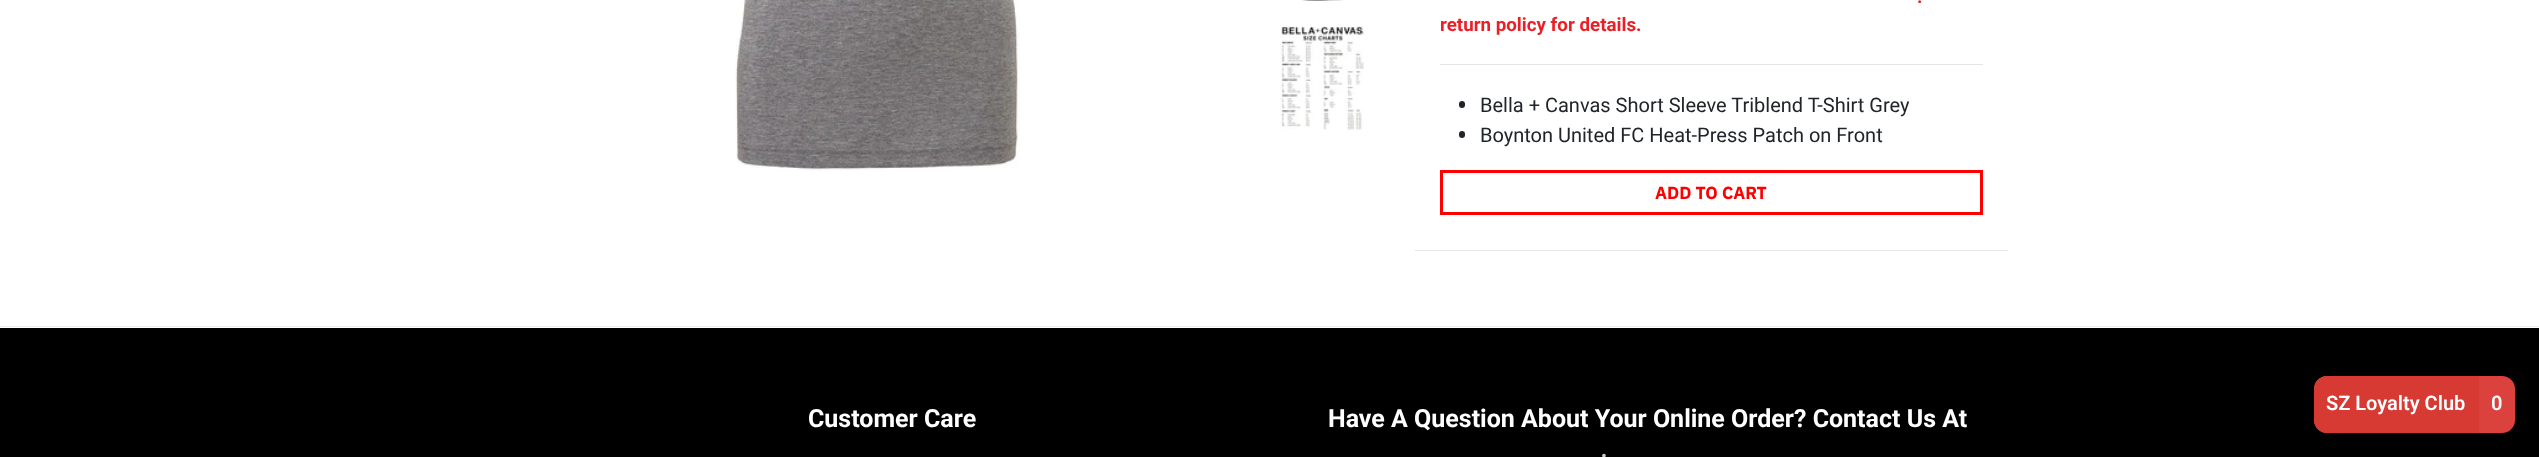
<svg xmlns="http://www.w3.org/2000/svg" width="2539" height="457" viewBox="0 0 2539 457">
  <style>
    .t1 { font: bold 18.75px Roboto; fill: #ed1f26; }
    .t2 { font: 20px Roboto; fill: #212529; }
    .t3 { font: bold 17.5px IBM Plex Sans; fill: #f00; }
    .t4 { font: bold 25px Roboto; fill: #fff; }
    .t5 { font: 17.5px Roboto; fill: #ccc; }
    .t6 { font: 600 20px Roboto; fill: #fff; }
  </style>
  <rect width="100%" height="100%" fill="#fff"/>
  <rect x="0" y="326" width="2539" height="1" fill="#ededed"/>
  <image x="735" y="0" width="285" height="171" href="images/1.png"/>
  <image x="1302" y="0" width="41" height="1" href="images/2.png"/>
  <image x="1280" y="26" width="84" height="104" href="images/3.png"/>
  <rect x="1415" y="250" width="593" height="1" fill="#e5e5e5"/>
  <rect x="1440" y="64" width="543" height="1" fill="#e5e5e5"/>
  <text x="1917" y="3" class="t1">.</text>
  <text x="1440" y="31" class="t1">return policy for details.</text>
  <rect x="1459" y="101" width="6" height="7" rx="3" fill="#212529"/>
  <text x="1480" y="112" class="t2">Bella + Canvas Short Sleeve Triblend T-Shirt Grey</text>
  <rect x="1459" y="131" width="6" height="7" rx="3" fill="#212529"/>
  <text x="1480" y="142" class="t2">Boynton United FC Heat-Press Patch on Front</text>
  <rect x="1441.5" y="171.5" width="540" height="42" fill="none" stroke="#f00" stroke-width="3"/>
  <text x="1655" y="199" class="t3">ADD TO CART</text>
  <rect x="0" y="328" width="2539" height="129" fill="#000"/>
  <text x="808" y="427" class="t4">Customer Care</text>
  <text x="1328" y="427" class="t4">Have A Question About Your Online Order? Contact Us At</text>
  <text x="1601" y="462" class="t5">•</text>
  <rect x="2314" y="376" width="201" height="57" rx="13" fill="#dc423d"/>
  <path d="M2327 376H2479V433H2327C2320 433 2314 427 2314 420V389C2314 382 2320 376 2327 376Z" fill="#d73933"/>
  <text x="2326" y="410" class="t6">SZ Loyalty Club</text>
  <text x="2491" y="410" class="t6">0</text>
</svg>
